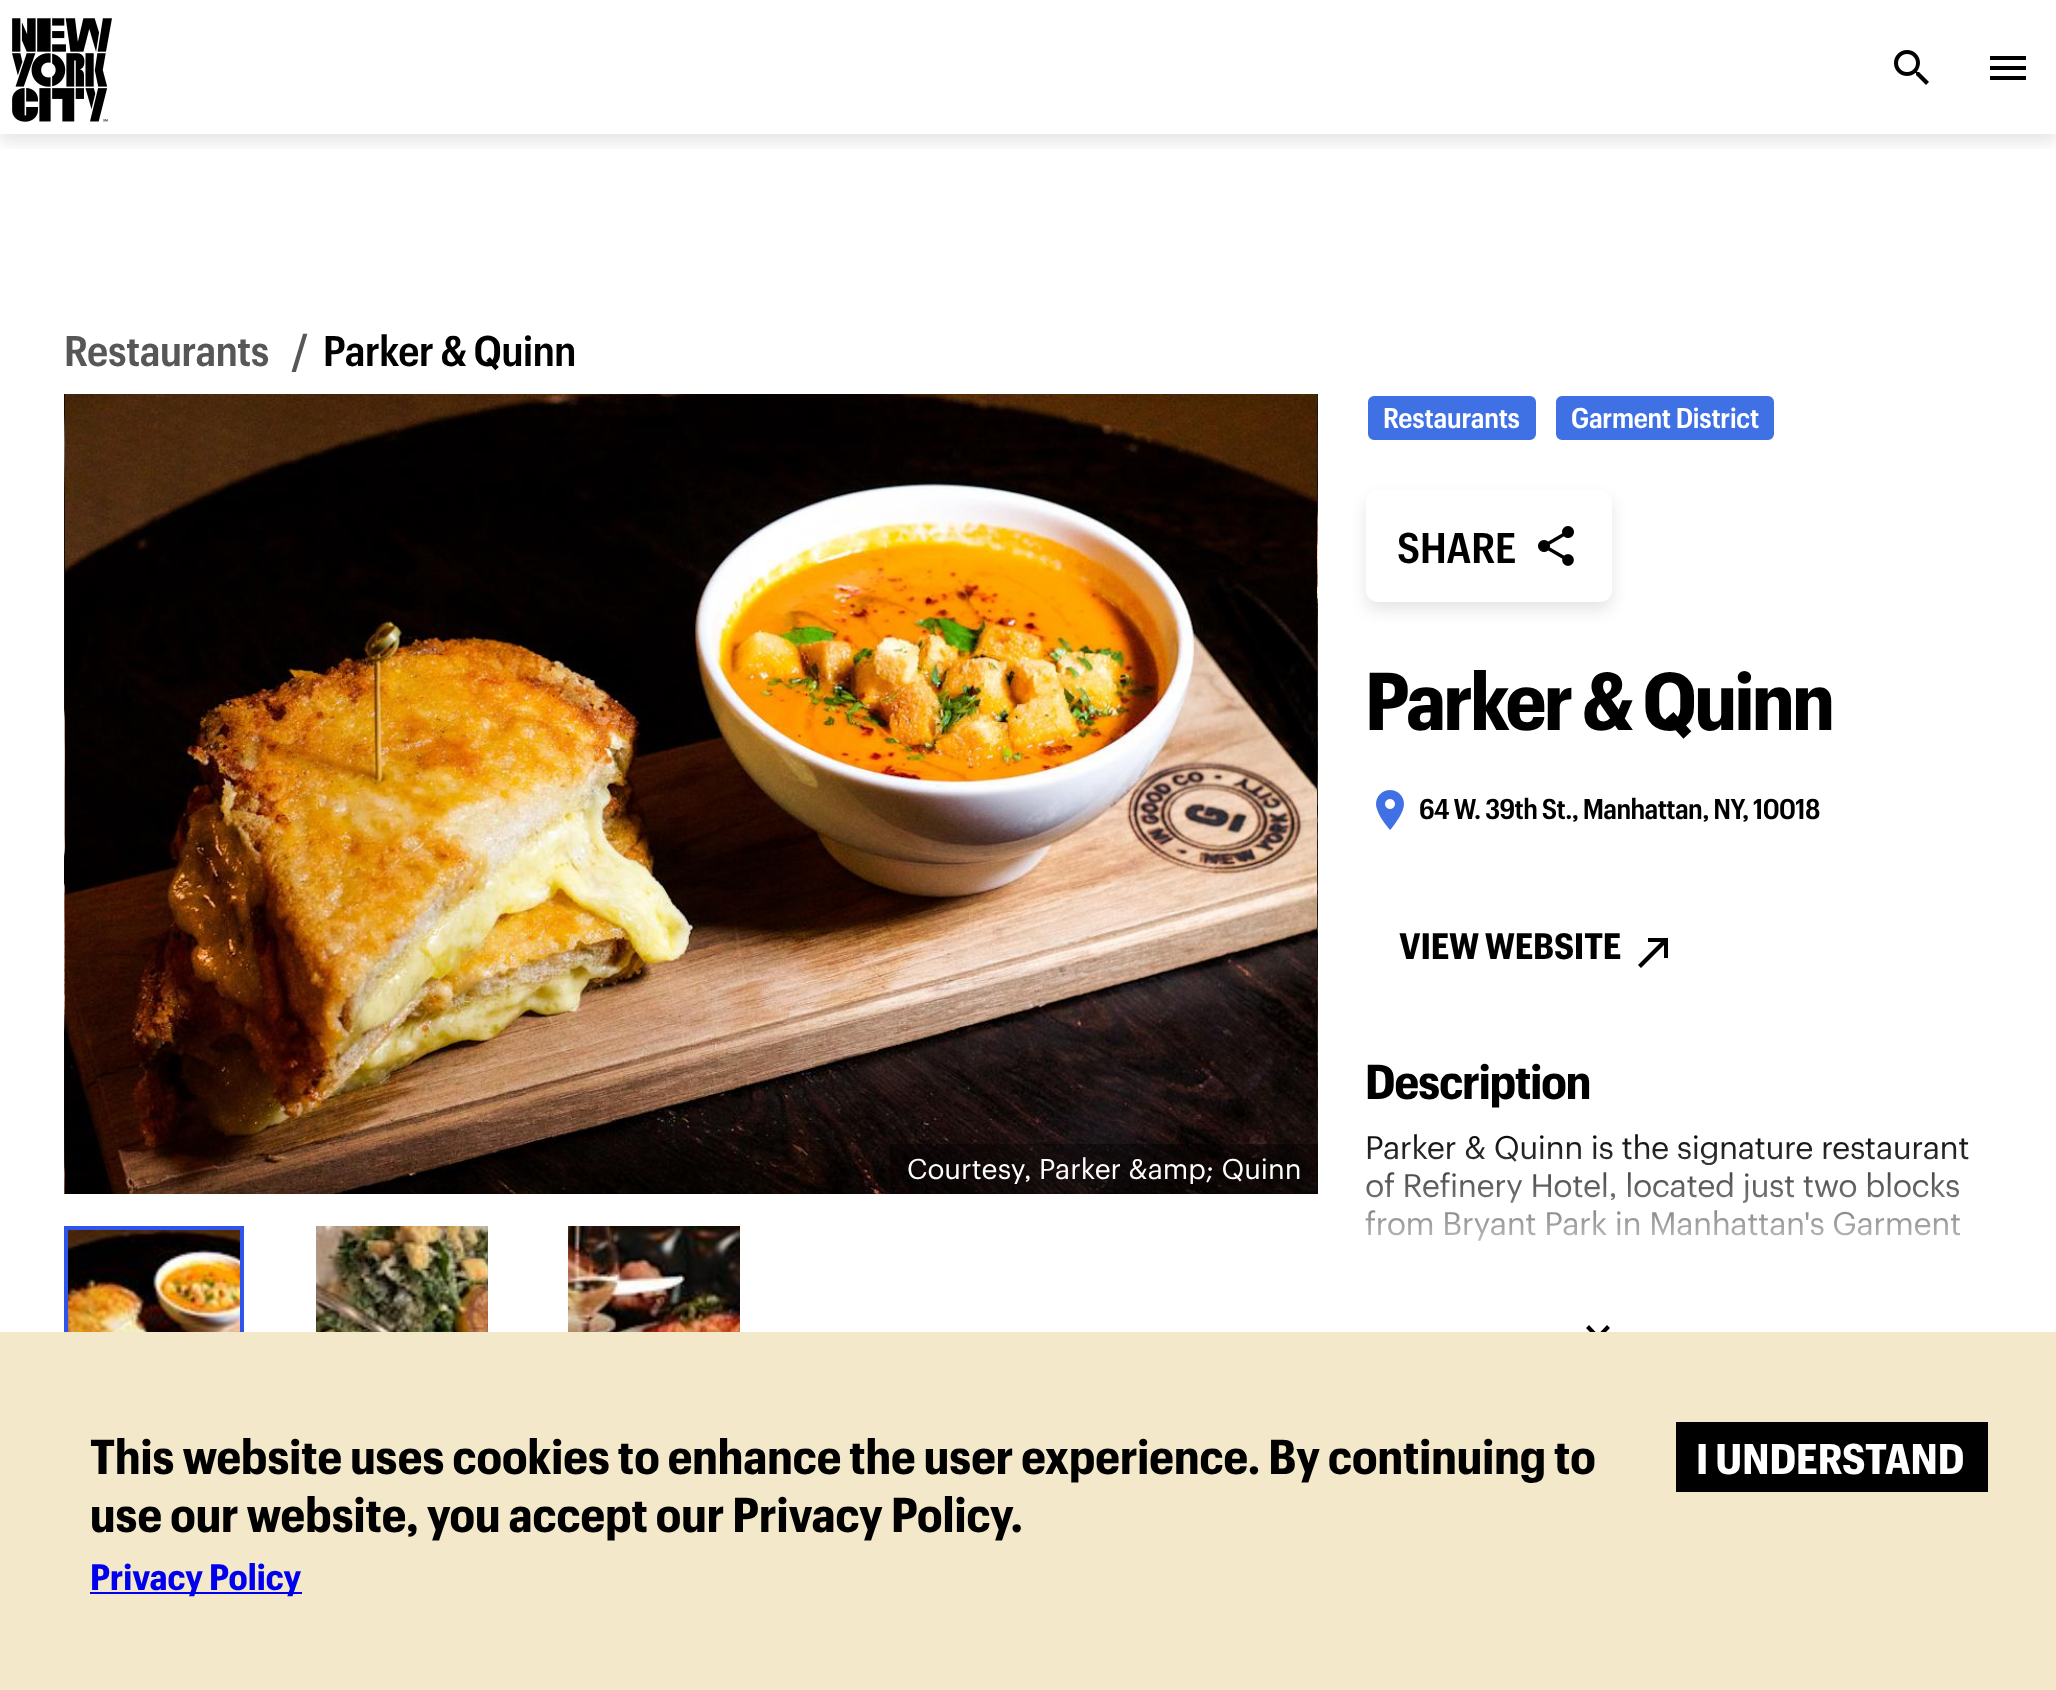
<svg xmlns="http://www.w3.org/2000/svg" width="2056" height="1690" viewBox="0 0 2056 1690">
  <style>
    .t1 { font: 600 42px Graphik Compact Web; letter-spacing: -0.4px; fill: #575757; }
    .t2 { font: 600 42px Graphik Compact Web; letter-spacing: -0.4px; fill: #000; }
    .t3 { font: 28px Graphik; fill: #fff; }
    .t4 { font: 600 28px Graphik Compact Web; letter-spacing: -0.25px; fill: #fff; }
    .t5 { font: 600 42px Graphik Compact Web; letter-spacing: -0.25px; fill: #000; }
    .t6 { font: bold 80px Graphik Compact Web; letter-spacing: -2.4px; fill: #000; }
    .t7 { font: 600 28px Graphik Compact Web; letter-spacing: -0.6px; fill: #000; }
    .t8 { font: bold 36px Graphik Compact Web; letter-spacing: -0.25px; fill: #000; }
    .t9 { font: bold 48px Graphik Compact Web; letter-spacing: -1px; fill: #000; }
    .t10 { font: 32px Graphik; letter-spacing: -0.45px; fill: #000; }
    .t11 { font: bold 48px Graphik Compact Web; fill: #000; }
    .t12 { font: bold 36px Graphik Compact Web; fill: #00e; }
    .t13 { font: bold 42px Graphik Compact Web; fill: #fff; }
  </style>
  <defs>
    <clipPath id="clip1"><rect x="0" y="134" width="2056" height="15"/></clipPath>
    <linearGradient id="g1" gradientUnits="userSpaceOnUse" x1="1679" y1="1130" x2="1679" y2="1280"><stop offset="0" stop-color="#fff" stop-opacity="0"/><stop offset="1" stop-color="#fff"/></linearGradient>
  </defs>
  <rect width="100%" height="100%" fill="#fff"/>
  <g clip-path="url(#clip1)">
    <rect x="0" y="8" width="2056" height="134" fill="#0000001a" filter="blur(8px)"/>
  </g>
  <image x="12" y="18" width="100" height="104" href="images/1.png"/>
  <image x="1894" y="50" width="35" height="35" href="images/2.png"/>
  <path d="M1990 56H2026V60H1990ZM1990 70V66H2026V70ZM1990 80V76H2026V80Z" fill="#000"/>
  <text x="64" y="366" class="t1">Restaurants</text>
  <text x="292" y="366" class="t1">/</text>
  <text x="323" y="366" class="t2">Parker &amp; Quinn</text>
  <image x="64" y="394" width="1" height="800" href="images/3.png"/>
  <image x="65" y="394" width="1252" height="800" href="images/4.png"/>
  <image x="1317" y="394" width="1" height="800" href="images/5.png"/>
  <rect x="66" y="1228" width="176" height="176" fill="none" stroke="#2f54eb" stroke-width="4"/>
  <image x="68" y="1230" width="172" height="102" href="images/6.png"/>
  <image x="316" y="1226" width="172" height="106" href="images/7.png"/>
  <image x="568" y="1226" width="172" height="106" href="images/8.png"/>
  <rect x="890" y="1144" width="428" height="50" fill="#00000066"/>
  <text x="907" y="1179" class="t3">Courtesy, Parker &amp;amp; Quinn</text>
  <rect x="1367" y="395" width="170" height="46" rx="7" fill="#3f70e4" stroke="#fff" stroke-width="2"/>
  <text x="1383" y="428" class="t4">Restaurants</text>
  <rect x="1555" y="395" width="220" height="46" rx="7" fill="#3f70e4" stroke="#fff" stroke-width="2"/>
  <text x="1571" y="428" class="t4">Garment District</text>
  <rect x="1366" y="498" width="246" height="112" rx="12" fill="#0000001a" filter="blur(8px)"/>
  <rect x="1366" y="490" width="246" height="112" rx="12" fill="#fff"/>
  <text x="1397" y="563" class="t5">SHARE</text>
  <image x="1538" y="526" width="36" height="40" href="images/9.png"/>
  <text x="1365" y="730" class="t6">Parker &amp; Quinn</text>
  <image x="1376" y="790" width="28" height="40" href="images/10.png"/>
  <text x="1419" y="819" class="t7">64 W. 39th St., Manhattan, NY, 10018</text>
  <text x="1399" y="959" class="t8">VIEW WEBSITE</text>
  <path d="M1648 938H1668V958H1664V945L1641 968L1638 965L1661 942H1648Z" fill="#000"/>
  <text x="1365" y="1099" class="t9">Description</text>
  <text x="1365" y="1159" class="t10">Parker &amp; Quinn is the signature restaurant</text>
  <text x="1365" y="1197" class="t10">of Refinery Hotel, located just two blocks</text>
  <text x="1365" y="1235" class="t10">from Bryant Park in Manhattan's Garment</text>
  <rect x="1366" y="1134" width="603" height="107" fill="url(#g1)"/>
  <path d="M1607 1325L1610 1328L1598 1340L1586 1328L1589 1325L1598 1334.5Z" fill="#000"/>
  <rect x="0" y="1332" width="2056" height="358" fill="#f4e8ca"/>
  <text x="90" y="1474" class="t11">This website uses cookies to enhance the user experience. By continuing to</text>
  <text x="90" y="1532" class="t11">use our website, you accept our Privacy Policy.</text>
  <rect x="90" y="1592" width="212" height="2" fill="#00e"/>
  <text x="90" y="1590" class="t12">Privacy Policy</text>
  <rect x="1676" y="1422" width="312" height="70" fill="#000"/>
  <text x="1696" y="1474" class="t13">I UNDERSTAND</text>
</svg>
